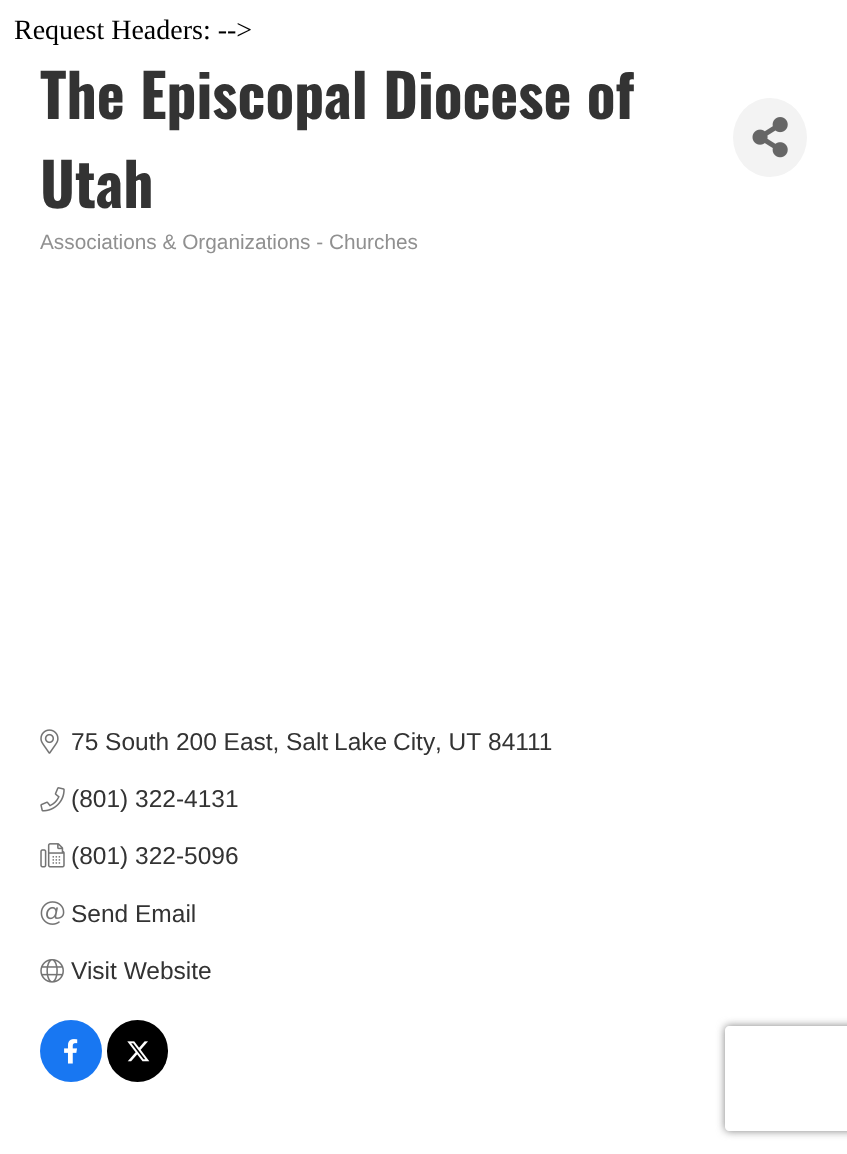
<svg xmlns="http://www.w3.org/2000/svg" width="847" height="1154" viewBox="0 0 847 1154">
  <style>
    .t1 { font: 28px Liberation Serif; fill: #000; }
    .t2 { font: bold 59.5px Oswald; fill: #333; }
    .t3 { font: 20.8px Liberation Sans; fill: #909090; }
    .t4 { font: 24.5px Liberation Sans; fill: #333; }
  </style>
  <defs>
    <clipPath id="clip1"><path d="M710 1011H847V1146H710ZM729 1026H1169C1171 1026 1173 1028 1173 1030V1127C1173 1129 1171 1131 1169 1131H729C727 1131 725 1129 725 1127V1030C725 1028 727 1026 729 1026Z" clip-rule="evenodd"/></clipPath>
  </defs>
  <rect width="100%" height="100%" fill="#fff"/>
  <text x="14" y="39" class="t1">Request Headers: --&gt;</text>
  <text x="40" y="119" class="t2">The Episcopal Diocese of</text>
  <text x="40" y="208" class="t2">Utah</text>
  <ellipse cx="770" cy="137.5" rx="37" ry="39.5" fill="#f3f3f3"/>
  <image x="752" y="117" width="36" height="41" href="images/1.png"/>
  <text x="40" y="249" class="t3">Associations &amp; Organizations - Churches</text>
  <image x="40" y="729" width="19" height="25" href="images/2.png"/>
  <text x="71" y="750" class="t4">75 South 200 East,</text>
  <text x="286" y="750" word-spacing="-1" class="t4">Salt Lake City</text>
  <text x="435" y="750" class="t4">, UT</text>
  <text x="488" y="750" class="t4">84111</text>
  <image x="40" y="787" width="25" height="25" href="images/3.png"/>
  <text x="71" y="807" class="t4">(801) 322-4131</text>
  <image x="40" y="843" width="25" height="25" href="images/4.png"/>
  <text x="71" y="864" class="t4">(801) 322-5096</text>
  <image x="40" y="901" width="25" height="24" href="images/5.png"/>
  <text x="71" y="922" class="t4">Send Email</text>
  <image x="40" y="959" width="24" height="24" href="images/6.png"/>
  <text x="71" y="979" class="t4">Visit Website</text>
  <circle cx="71" cy="1051" r="31" fill="#1877f2"/>
  <image x="64" y="1039" width="14" height="25" href="images/7.png"/>
  <rect x="107" y="1020" width="61" height="62" rx="30.5" fill="#000"/>
  <image x="127" y="1041" width="23" height="21" href="images/8.png"/>
  <g clip-path="url(#clip1)">
    <rect x="725" y="1026" width="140" height="105" rx="4" fill="#808080" filter="blur(4.5px)"/>
  </g>
</svg>
